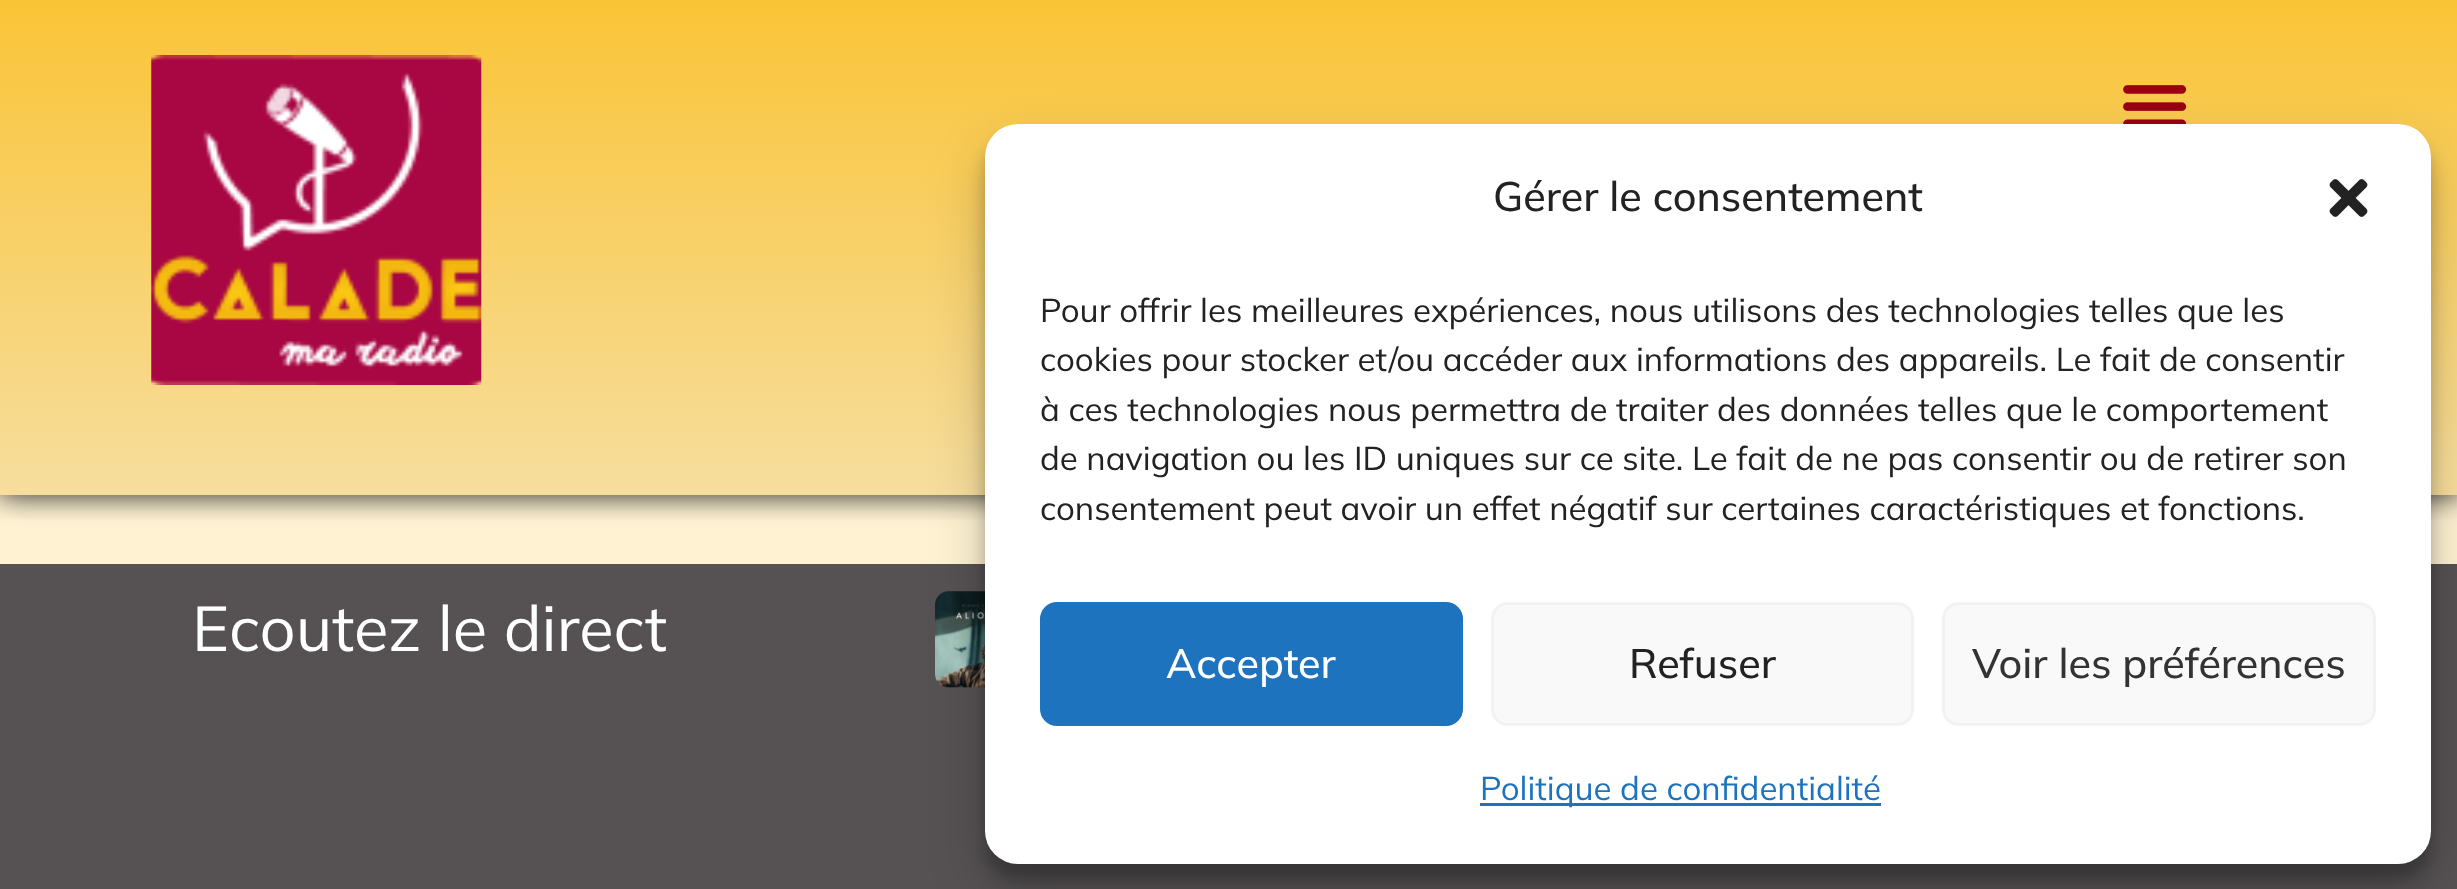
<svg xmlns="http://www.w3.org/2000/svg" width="2457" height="889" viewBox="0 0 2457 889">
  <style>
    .t1 { font: 200 63.25px Mulish; fill: #fff; }
    .t2 { font: 200 41.25px 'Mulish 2'; fill: #222; }
    .t3 { font: 200 33px Mulish; fill: #222; }
    .t4 { font: 200 41.25px 'Mulish 2'; fill: #fff; }
    .t5 { font: 200 41.25px 'Mulish 2'; fill: #333; }
    .t6 { font: 200 33px Mulish; fill: #1e73be; }
  </style>
  <defs>
    <linearGradient id="g1" gradientUnits="userSpaceOnUse" x1="1229" y1="0" x2="1229" y2="495"><stop offset="0" stop-color="#fac436"/><stop offset="1" stop-color="#f7de9e"/></linearGradient>
    <clipPath id="clip1"><rect x="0" y="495" width="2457" height="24"/></clipPath>
  </defs>
  <rect width="100%" height="100%" fill="#fef2d2"/>
  <rect x="0" y="0" width="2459" height="495" fill="#00000080" filter="blur(14px)"/>
  <rect x="0" y="0" width="2457" height="495" fill="url(#g1)"/>
  <g clip-path="url(#clip1)">
    <rect x="0" y="0" width="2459" height="495" fill="#00000080" filter="blur(14px)"/>
  </g>
  <image x="151" y="55" width="331" height="330" href="images/1.png"/>
  <image x="2123" y="85" width="64" height="39" href="images/2.png"/>
  <rect x="0" y="564" width="2457" height="325" fill="#565253"/>
  <text x="192" y="651" class="t1">Ecoutez le direct</text>
  <image x="935" y="591" width="50" height="97" href="images/3.png"/>
  <rect x="985" y="140" width="1446" height="740" rx="33" fill="#0000003b" filter="blur(8px)"/>
  <rect x="985" y="151" width="1446" height="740" rx="33" fill="#00000030" filter="blur(27.5px)"/>
  <rect x="985" y="124" width="1446" height="740" rx="33" fill="#fff"/>
  <text x="1493" y="211" class="t2">Gérer le consentement</text>
  <image x="2329" y="179" width="39" height="38" href="images/4.png"/>
  <text x="1040" y="322" class="t3">Pour offrir les meilleures expériences, nous utilisons des technologies telles que les</text>
  <text x="1040" y="371" class="t3">cookies pour stocker et/ou accéder aux informations des appareils. Le fait de consentir</text>
  <text x="1040" y="421" class="t3">à ces technologies nous permettra de traiter des données telles que le comportement</text>
  <text x="1040" y="470" class="t3">de navigation ou les ID uniques sur ce site. Le fait de ne pas consentir ou de retirer son</text>
  <text x="1040" y="520" class="t3">consentement peut avoir un effet négatif sur certaines caractéristiques et fonctions.</text>
  <rect x="1041.5" y="603.5" width="420" height="121" rx="15.5" fill="#1e73be" stroke="#1e73be" stroke-width="3"/>
  <text x="1166" y="678" class="t4">Accepter</text>
  <rect x="1492.5" y="603.5" width="420" height="121" rx="15.5" fill="#f9f9f9" stroke="#f2f2f2" stroke-width="3"/>
  <text x="1629" y="678" class="t2">Refuser</text>
  <rect x="1943.5" y="603.5" width="431" height="121" rx="15.5" fill="#f9f9f9" stroke="#f2f2f2" stroke-width="3"/>
  <text x="1972" y="678" class="t5">Voir les préférences</text>
  <rect x="1480" y="803" width="401" height="3" fill="#1e73be"/>
  <text x="1480" y="800" class="t6">Politique de confidentialité</text>
</svg>
